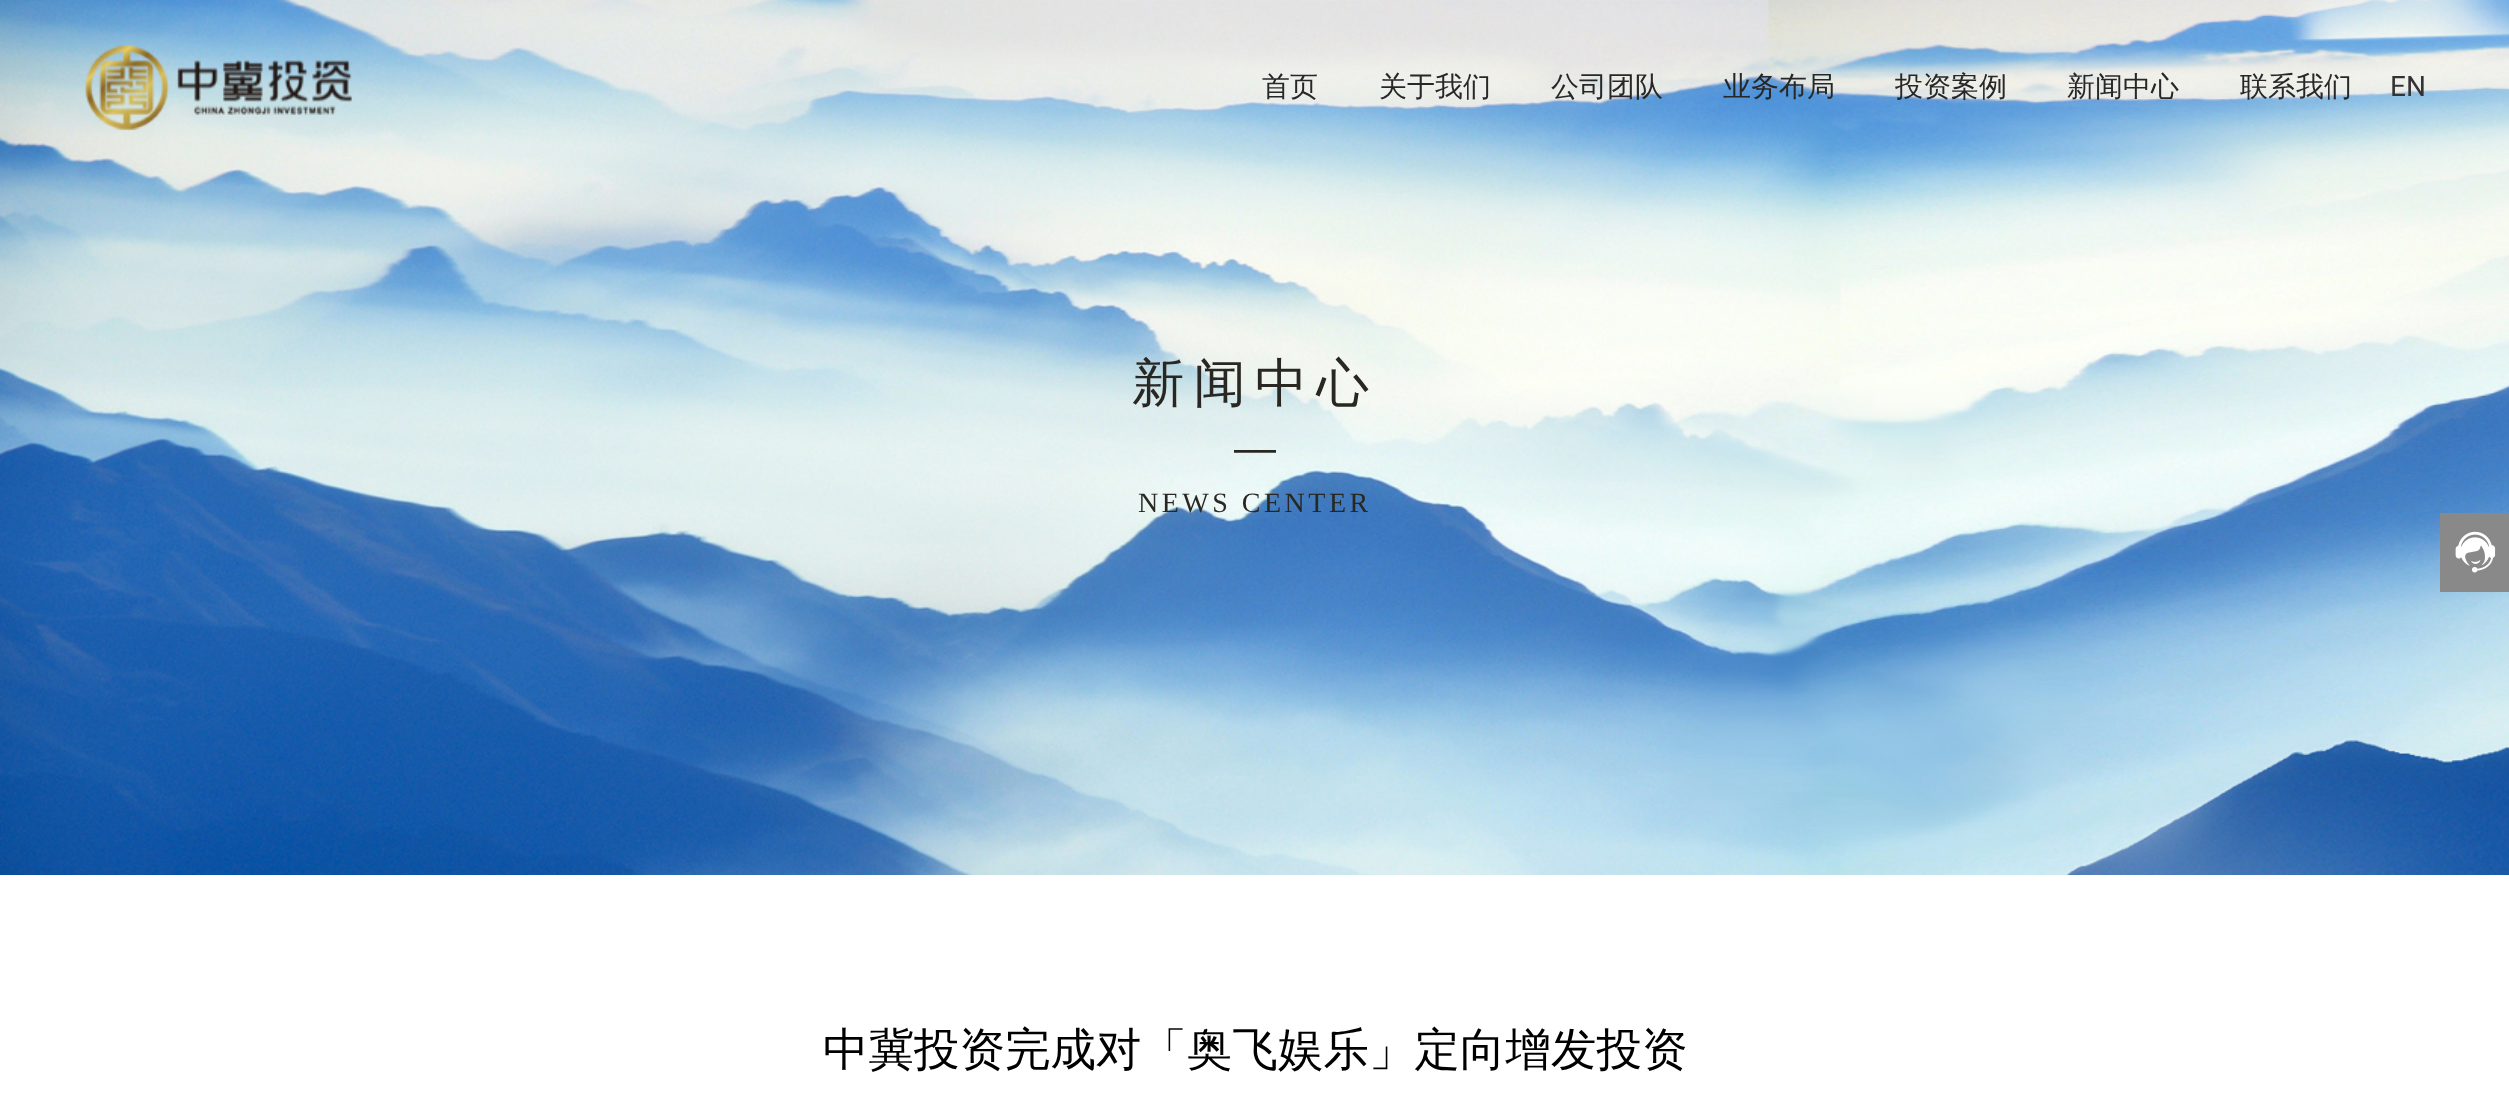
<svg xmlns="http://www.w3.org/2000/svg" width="2509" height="1103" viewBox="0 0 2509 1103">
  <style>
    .t1 { font: 500 28px WenQuanYi Zen Hei; fill: #272727; }
    .t2 { font: 28px Roboto; fill: #333; }
    .t3 { font: 500 52.5px WenQuanYi Zen Hei; letter-spacing: 9px; fill: #292721; }
    .t4 { font: 42px Liberation Sans; fill: #292721; }
    .t5 { font: 28px Liberation Serif; letter-spacing: 3.5px; fill: #292721; }
    .t6 { font: 500 45.5px WenQuanYi Zen Hei; fill: #000; }
  </style>
  <rect width="100%" height="100%" fill="#fff"/>
  <image x="0" y="0" width="2509" height="875" href="images/2.png"/>
  <image x="85" y="45" width="267" height="86" href="images/1.png"/>
  <text x="1262" y="96" class="t1">首页</text>
  <text x="1379" y="96" class="t1">关于我们</text>
  <text x="1551" y="96" class="t1">公司团队</text>
  <text x="1723" y="96" class="t1">业务布局</text>
  <text x="1895" y="96" class="t1">投资案例</text>
  <text x="2067" y="96" class="t1">新闻中心</text>
  <text x="2240" y="96" class="t1">联系我们</text>
  <text x="2390" y="96" class="t2">EN</text>
  <text x="1132" y="401" class="t3">新闻中心</text>
  <text x="1234" y="462" class="t4">—</text>
  <text x="1138" y="512" class="t5">NEWS CENTER</text>
  <text x="823" y="1065" class="t6">中冀投资完成对「奥飞娱乐」定向增发投资</text>
  <rect x="2440" y="513" width="69" height="79" fill="#898989"/>
  <image x="2455" y="531" width="41" height="42" href="images/3.png"/>
</svg>
